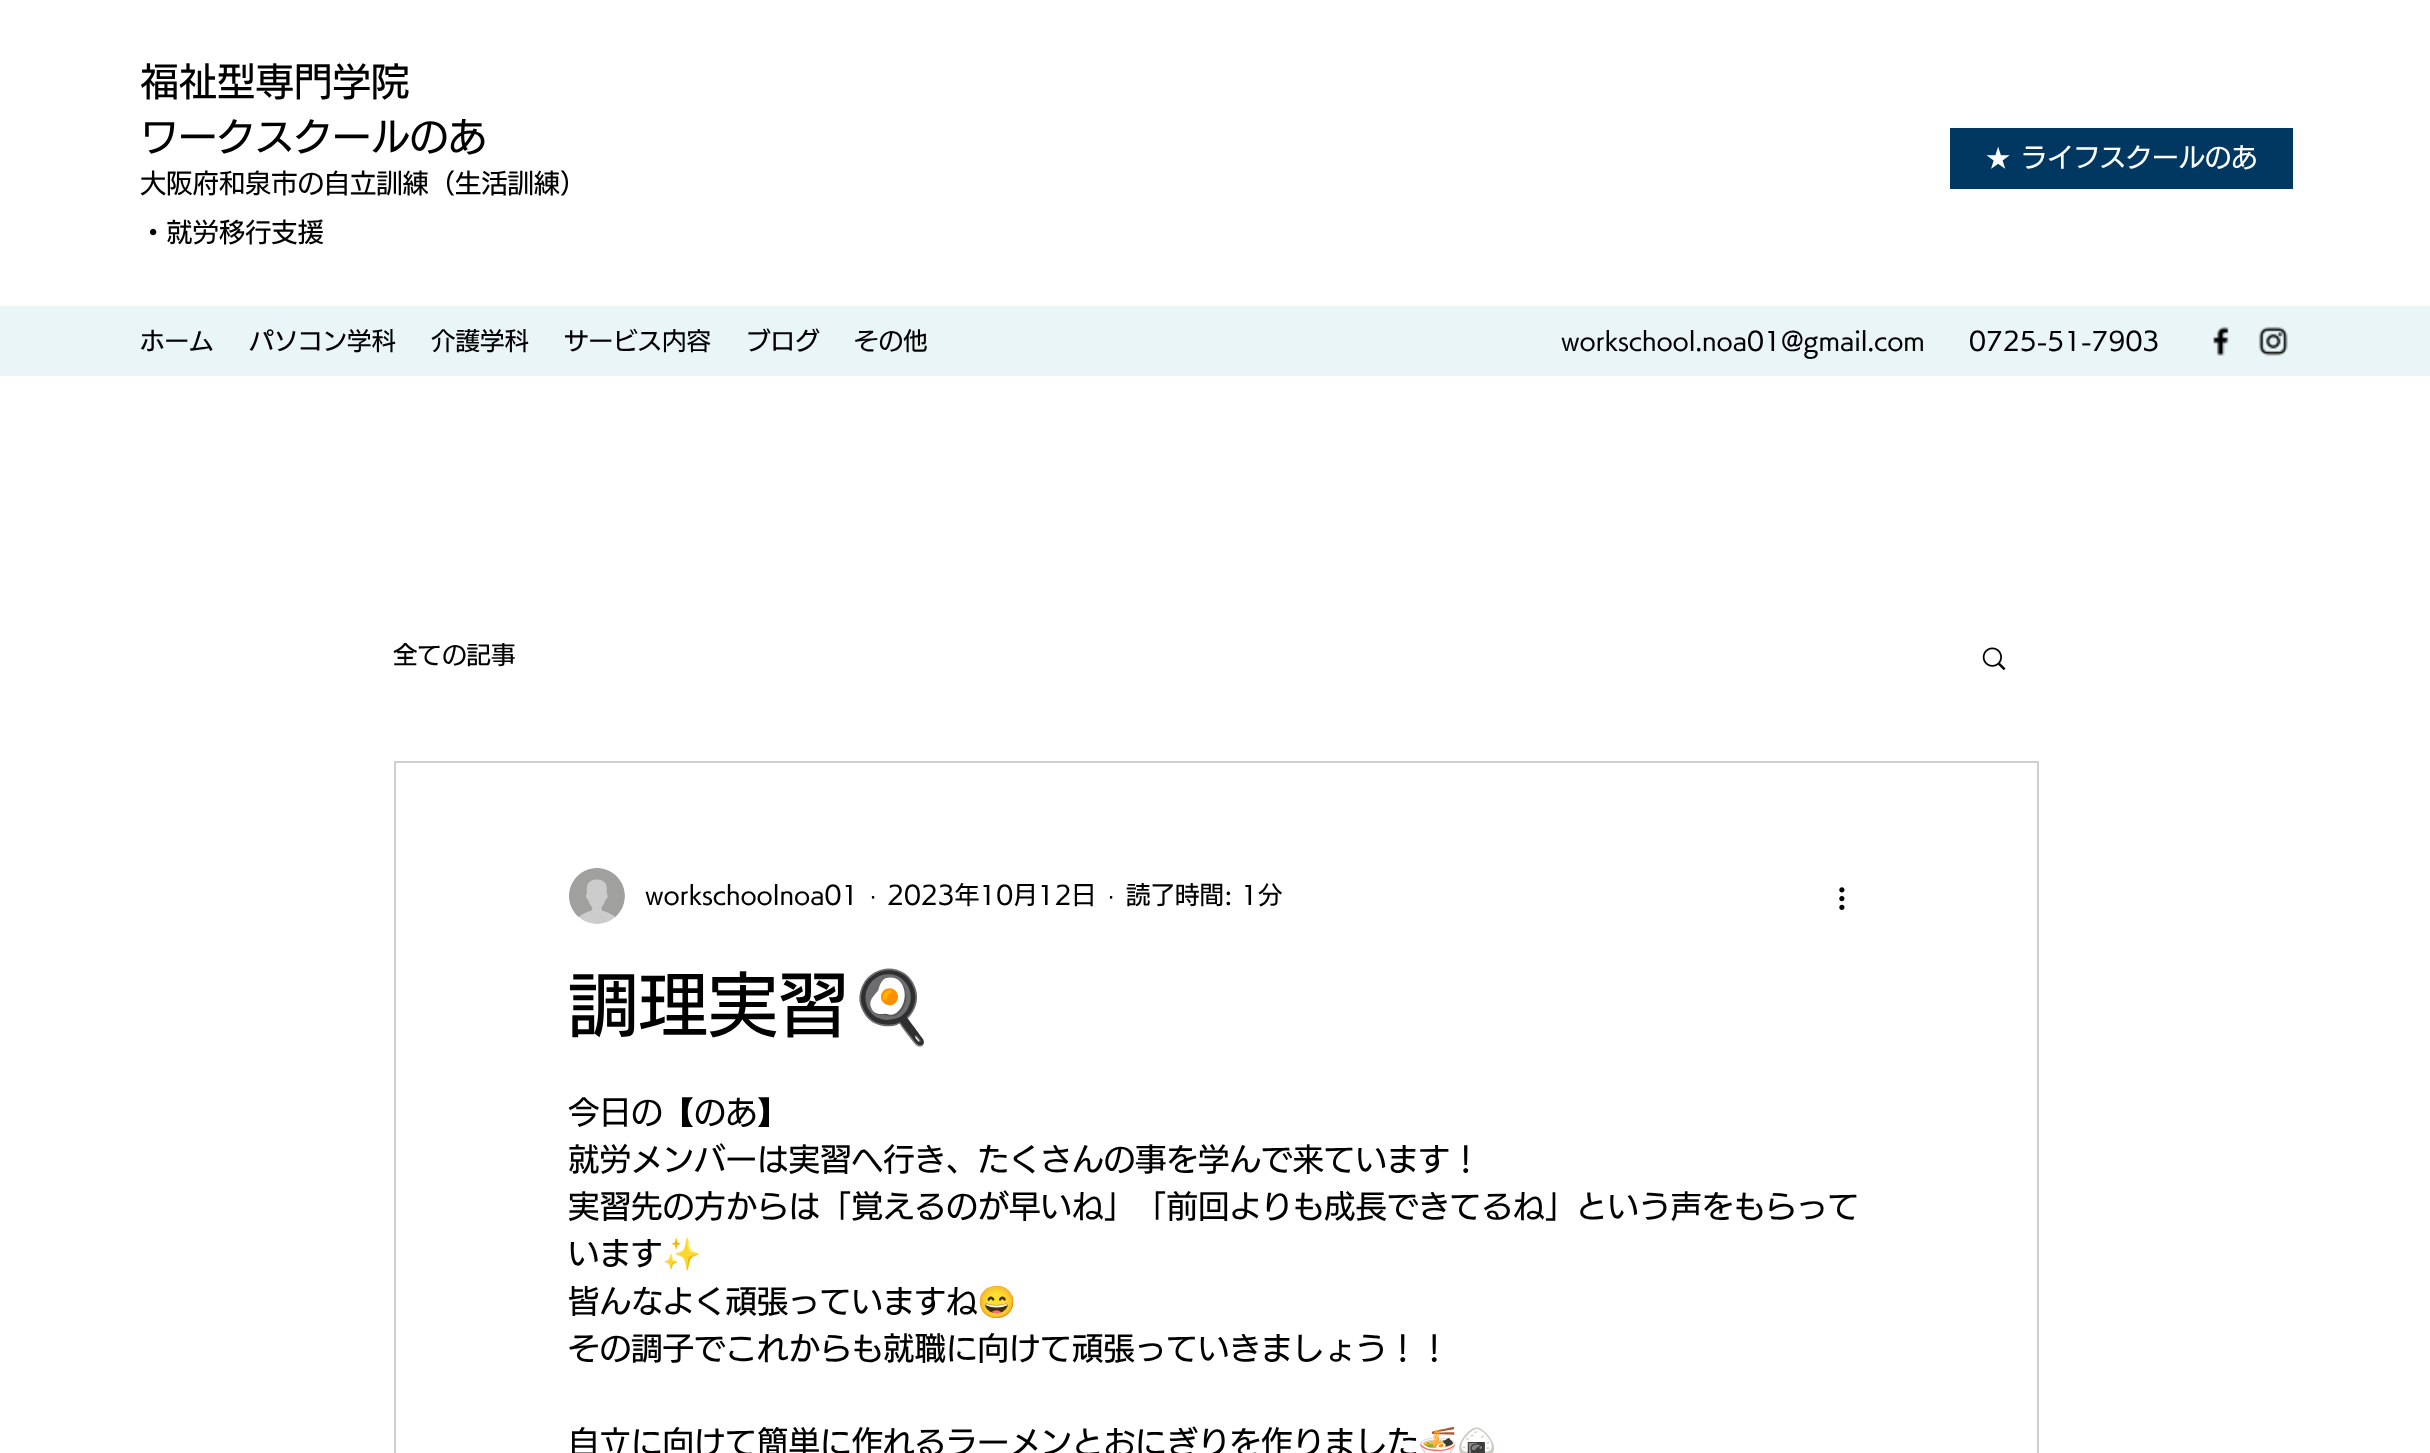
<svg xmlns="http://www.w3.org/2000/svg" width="2430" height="1453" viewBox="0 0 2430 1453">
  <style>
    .t1 { font: 500 38.5px 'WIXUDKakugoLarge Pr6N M'; fill: #000; }
    .t2 { font: 500 26.25px 'WIXUDKakugoLarge Pr6N M'; fill: #000; }
    .t3 { font: 500 26.25px WenQuanYi Zen Hei; fill: #fff; }
    .t4 { font: 500 26.25px 'WIXUDKakugoLarge Pr6N M'; fill: #fff; }
    .t5 { font: 500 24.5px 'WIXUDKakugoLarge Pr6N M'; fill: #000; }
    .t6 { font: 24.5px Liberation Sans; fill: #000; }
    .t7 { font: 500 70px 'WIXUDKakugoLarge Pr6N M'; fill: #000; }
    .t8 { font: 70px Noto Color Emoji; fill: #000; }
    .t9 { font: 500 31.5px 'WIXUDKakugoLarge Pr6N M'; fill: #000; }
    .t10 { font: 31.5px Noto Color Emoji; fill: #000; }
  </style>
  <rect width="100%" height="100%" fill="#fff"/>
  <text x="140" y="96" class="t1">福祉型専門学院</text>
  <text x="140" y="151" class="t1">ワークスクールのあ</text>
  <text x="140" y="193" class="t2">大阪府和泉市の自立訓練（生活訓練）</text>
  <text x="140" y="242" class="t2">・就労移行支援</text>
  <rect x="1950" y="128" width="343" height="61" fill="#003862"/>
  <text x="1985" y="167" class="t3">★</text>
  <text x="2021" y="167" class="t4">ライフスクールのあ</text>
  <rect x="0" y="306" width="2430" height="70" fill="#eaf5f7"/>
  <text x="140" y="350" class="t5">ホーム</text>
  <text x="249" y="350" class="t5">パソコン学科</text>
  <text x="431" y="350" class="t5">介護学科</text>
  <text x="564" y="350" class="t5">サービス内容</text>
  <text x="746" y="350" class="t5">ブログ</text>
  <text x="854" y="350" class="t5">その他</text>
  <text x="1561" y="350" class="t5">workschool.noa01@gmail.com</text>
  <text x="1969" y="350" class="t5">0725-51-7903</text>
  <image x="2213" y="326" width="16" height="30" href="images/1.png"/>
  <image x="2258" y="326" width="30" height="30" href="images/2.png"/>
  <text x="393" y="664" class="t5">全ての記事</text>
  <image x="1982" y="647" width="24" height="24" href="images/3.png"/>
  <rect x="395" y="762" width="1643" height="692" fill="none" stroke="#cfcfcf" stroke-width="2"/>
  <image x="569" y="868" width="56" height="56" href="images/4.png"/>
  <text x="645" y="904" class="t5">workschoolnoa01</text>
  <text x="869" y="904" class="t6">·</text>
  <text x="887" y="904" class="t5">2023年10月12日</text>
  <text x="1107" y="904" class="t6">·</text>
  <text x="1126" y="904" class="t5">読了時間: 1分</text>
  <image x="1839" y="887" width="6" height="23" href="images/5.png"/>
  <text x="568" y="1031" class="t7">調理実習</text>
  <text x="848" y="1031" class="t8">🍳</text>
  <text x="568" y="1124" class="t9">今日の【のあ】</text>
  <text x="568" y="1171" class="t9">就労メンバーは実習へ行き、たくさんの事を学んで来ています！</text>
  <text x="568" y="1218" class="t9">実習先の方からは「覚えるのが早いね」「前回よりも成長できてるね」という声をもらって</text>
  <text x="568" y="1265" class="t9">います</text>
  <text x="662" y="1265" class="t10">✨</text>
  <text x="568" y="1313" class="t9">皆んなよく頑張っていますね</text>
  <text x="977" y="1313" class="t10">😄</text>
  <text x="568" y="1360" class="t9">その調子でこれからも就職に向けて頑張っていきましょう！！</text>
  <text x="568" y="1454" class="t9">自立に向けて簡単に作れるラーメンとおにぎりを作りました</text>
  <text x="1418" y="1454" class="t10">🍜🍙</text>
</svg>
